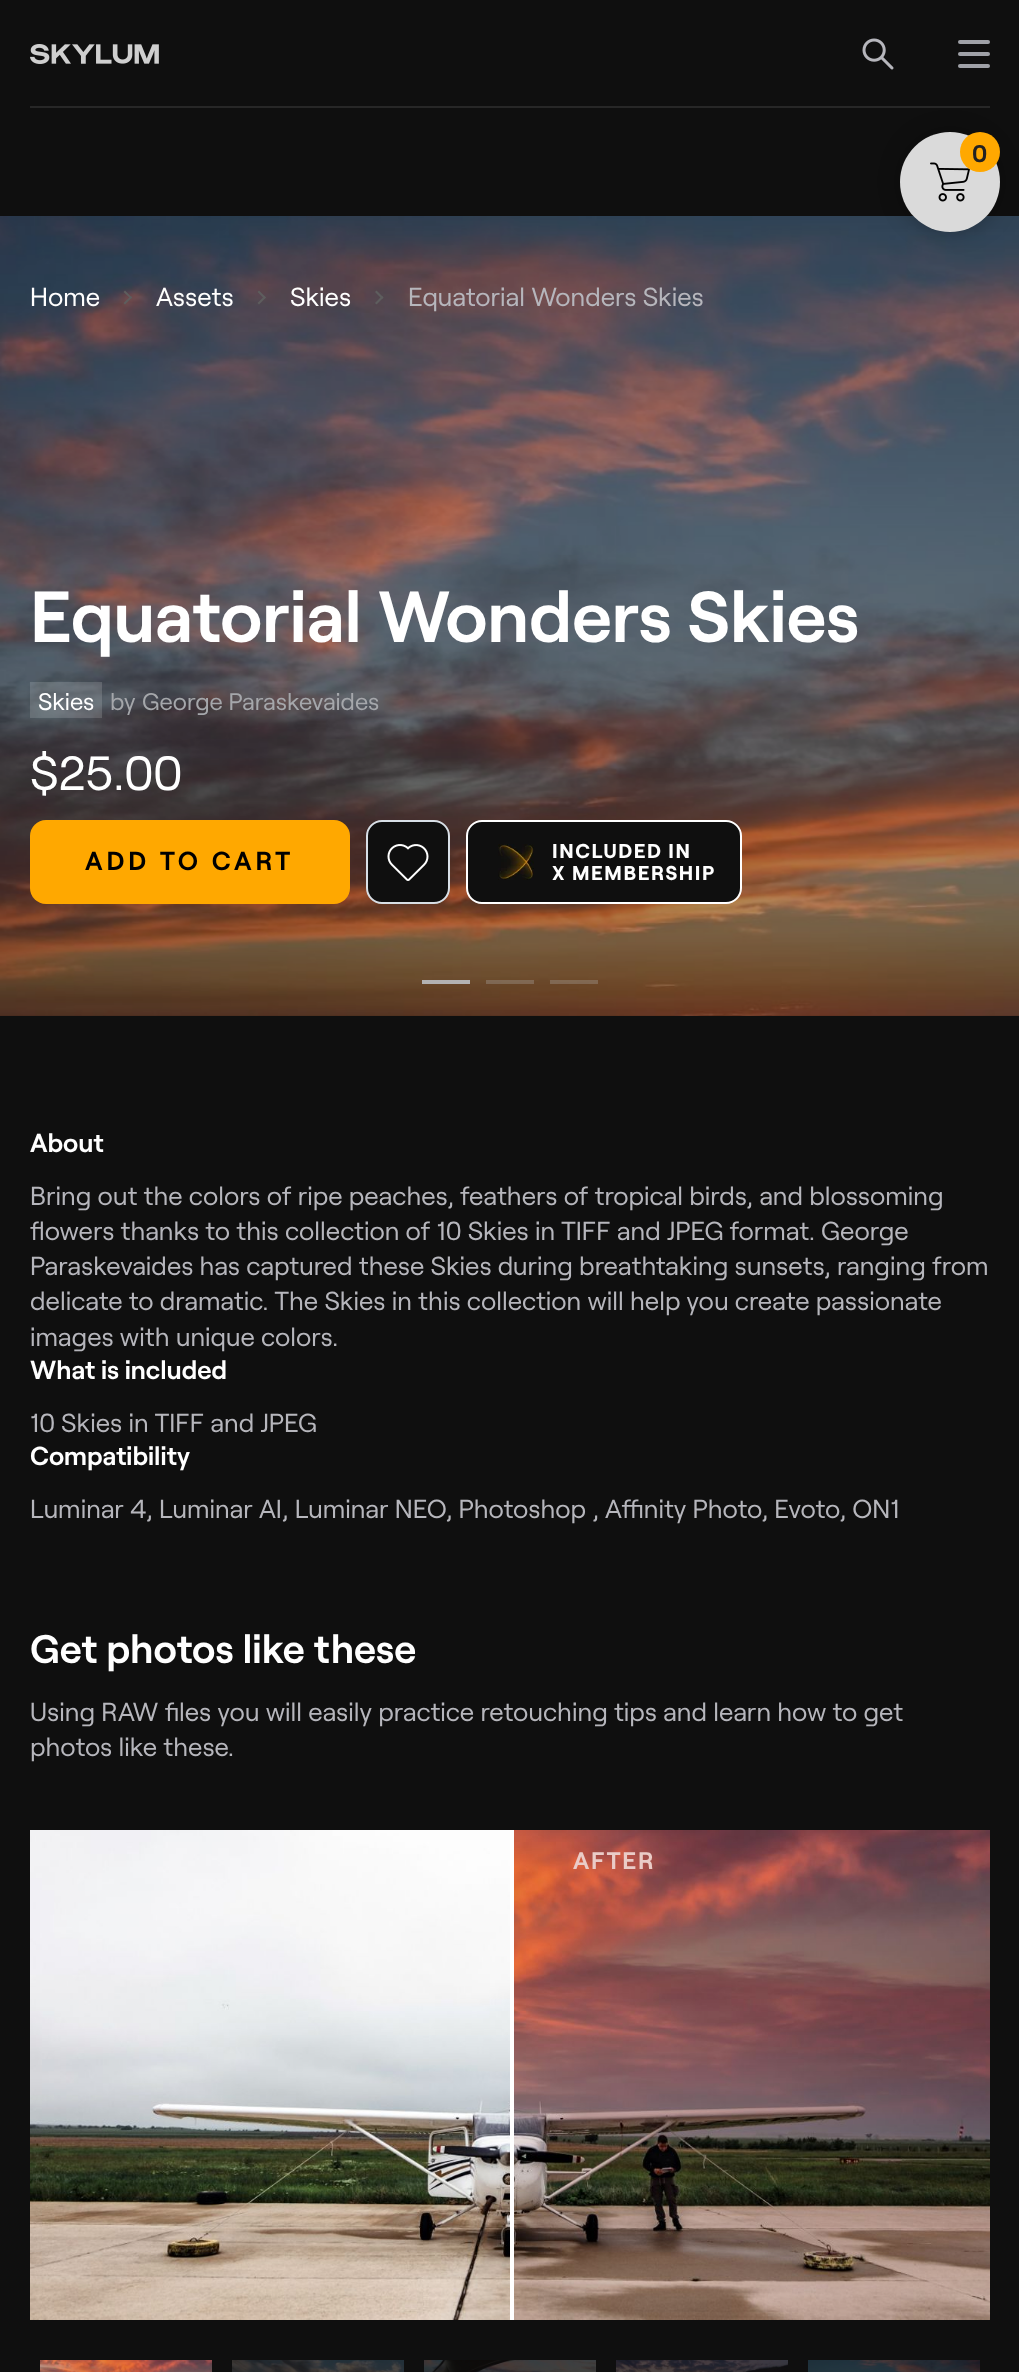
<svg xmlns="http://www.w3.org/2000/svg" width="1019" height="2372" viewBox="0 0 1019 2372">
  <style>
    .t1 { font: 600 24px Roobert; fill: #222; }
    .t2 { font: 26px Roobert; fill: #fff; }
    .t3 { font: 26px Roobert; fill: #b6b6bc; }
    .t4 { font: 600 72px Roobert; fill: #fff; }
    .t5 { font: 24px Roobert; fill: #fff; }
    .t6 { font: 24px Roobert; fill: #a5a7ab; }
    .t7 { font: 48px Roobert; fill: #fff; }
    .t8 { font: 600 26px Roobert; letter-spacing: 4px; fill: #000; }
    .t9 { font: bold 20px Roobert; letter-spacing: 1.6px; fill: #fff; }
    .t10 { font: 600 26px Roobert; fill: #fff; }
    .t11 { font: 600 40px Roobert; fill: #fff; }
    .t12 { font: 600 24px Roobert; letter-spacing: 2px; fill: #eaccc7; }
  </style>
  <rect width="100%" height="100%" fill="#0f0f0f"/>
  <image x="0" y="216" width="1019" height="800" href="images/4.png"/>
  <rect x="904" y="136" width="92" height="92" rx="46" fill="#00000066" filter="blur(12px)"/>
  <rect x="30" y="106" width="960" height="2" fill="#272727"/>
  <image x="30" y="44" width="129" height="20" href="images/1.png"/>
  <image x="862" y="38" width="32" height="32" href="images/2.png"/>
  <rect x="958" y="40" width="32" height="4" rx="2" fill="#9fa1a7"/>
  <rect x="958" y="52" width="32" height="4" rx="2" fill="#9fa1a7"/>
  <rect x="958" y="64" width="32" height="4" rx="2" fill="#9fa1a7"/>
  <circle cx="950" cy="182" r="50" fill="#dadada"/>
  <image x="930" y="162" width="40" height="40" href="images/3.png"/>
  <circle cx="980" cy="152" r="20" fill="#ffa800"/>
  <text x="972" y="162" class="t1">0</text>
  <text x="30" y="306" class="t2">Home</text>
  <path d="M132 297.5L125 304.5L123.5 303L131 296Z" fill="#5e5e5e"/>
  <path d="M132 297.5L131 299L123.5 292L125 290.5Z" fill="#5e5e5e"/>
  <text x="156" y="306" class="t2">Assets</text>
  <path d="M266 297.5L259 304.5L257.5 303L264.5 296Z" fill="#5e5e5e"/>
  <path d="M266 297.5L264.5 299L257.5 292L259 290.5Z" fill="#5e5e5e"/>
  <text x="290" y="306" class="t2">Skies</text>
  <path d="M383.5 297.5L376.5 304.5L375 303L382 296Z" fill="#5e5e5e"/>
  <path d="M383.5 297.5L382 299L375 292L376.5 290.5Z" fill="#5e5e5e"/>
  <text x="408" y="306" class="t3">Equatorial Wonders Skies</text>
  <rect x="422" y="980" width="48" height="4" fill="#b3b3b3"/>
  <rect x="486" y="980" width="48" height="4" fill="#b3b3b34d"/>
  <rect x="550" y="980" width="48" height="4" fill="#b3b3b34d"/>
  <text x="30" y="642" class="t4">Equatorial Wonders Skies</text>
  <rect x="30" y="682" width="72" height="36" fill="#ffffff26"/>
  <text x="38" y="710" class="t5">Skies</text>
  <text x="110" y="710" class="t6">by</text>
  <text x="142" y="710" class="t6">George Paraskevaides</text>
  <text x="30" y="790" class="t7">$25.00</text>
  <rect x="30" y="820" width="320" height="84" rx="16" fill="#ffa800"/>
  <text x="85" y="870" class="t8">ADD TO CART</text>
  <rect x="367" y="821" width="82" height="82" rx="15" fill="#0f0f0f" stroke="#d8dfe6" stroke-width="2"/>
  <image x="387" y="844" width="42" height="37" href="images/5.png"/>
  <rect x="467" y="821" width="274" height="82" rx="15" fill="#0f0f0f" stroke="#fff" stroke-width="2"/>
  <image x="498" y="844" width="36" height="36" href="images/6.png"/>
  <text x="552" y="858" class="t9">INCLUDED IN</text>
  <text x="552" y="880" class="t9">X MEMBERSHIP</text>
  <text x="30" y="1152" class="t10">About</text>
  <text x="30" y="1205" class="t3">Bring out the colors of ripe peaches, feathers of tropical birds, and blossoming</text>
  <text x="30" y="1240" class="t3">flowers thanks to this collection of 10 Skies in TIFF and JPEG format. George</text>
  <text x="30" y="1275" class="t3">Paraskevaides has captured these Skies during breathtaking sunsets, ranging from</text>
  <text x="30" y="1310" class="t3">delicate to dramatic. The Skies in this collection will help you create passionate</text>
  <text x="30" y="1346" class="t3">images with unique colors.</text>
  <text x="30" y="1379" class="t10">What is included</text>
  <text x="30" y="1432" class="t3">10 Skies in TIFF and JPEG</text>
  <text x="30" y="1465" class="t10">Compatibility</text>
  <text x="30" y="1518" class="t3">Luminar 4, Luminar AI, Luminar NEO, Photoshop , Affinity Photo, Evoto, ON1</text>
  <text x="30" y="1663" class="t11">Get photos like these</text>
  <text x="30" y="1721" class="t3">Using RAW files you will easily practice retouching tips and learn how to get</text>
  <text x="30" y="1756" class="t3">photos like these.</text>
  <image x="30" y="1830" width="480" height="490" href="images/7.png"/>
  <rect x="510" y="1830" width="4" height="490" fill="#fff"/>
  <image x="514" y="1830" width="476" height="490" href="images/8.png"/>
  <text x="573" y="1869" class="t12">AFTER</text>
  <image x="40" y="2360" width="172" height="12" href="images/9.png"/>
  <image x="232" y="2360" width="172" height="12" href="images/10.png"/>
  <image x="424" y="2360" width="172" height="12" href="images/11.png"/>
  <image x="616" y="2360" width="172" height="12" href="images/12.png"/>
  <image x="808" y="2360" width="172" height="12" href="images/13.png"/>
</svg>
